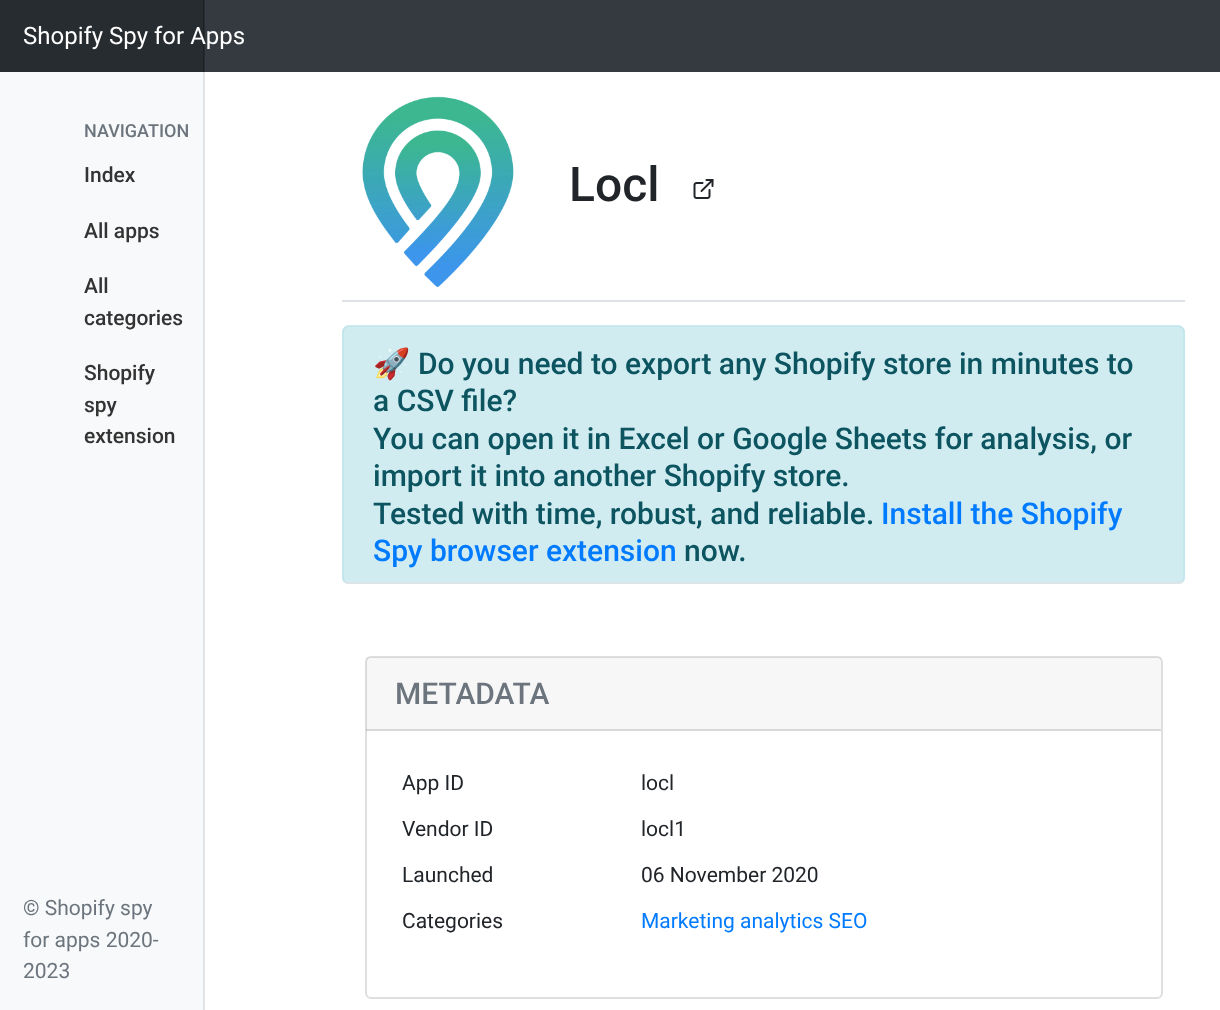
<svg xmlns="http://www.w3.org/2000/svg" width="1220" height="1010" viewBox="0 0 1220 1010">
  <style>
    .t1 { font: 24px Roboto; fill: #fff; }
    .t2 { font: 500 18px Roboto; fill: #6c757d; }
    .t3 { font: 500 21px Roboto; fill: #333; }
    .t4 { font: 21px Roboto; fill: #6c757d; }
    .t5 { font: 500 48px Roboto; fill: #212529; }
    .t6 { font: 30px Noto Color Emoji; fill: #0c5460; }
    .t7 { font: 500 30px Roboto; fill: #0c5460; }
    .t8 { font: 500 30px Roboto; fill: #007bff; }
    .t9 { font: 500 30px Roboto; fill: #6c757d; }
    .t10 { font: 21px Roboto; fill: #212529; }
    .t11 { font: 21px Roboto; fill: #007bff; }
  </style>
  <rect width="100%" height="100%" fill="#fff"/>
  <rect x="204" y="72" width="1" height="938" fill="#e6e6e6"/>
  <rect x="205" y="0" width="1015" height="72" fill="#343a40"/>
  <rect x="204" y="0" width="1" height="72" fill="#272c30"/>
  <rect x="0" y="0" width="203" height="72" fill="#272c30"/>
  <rect x="203" y="0" width="1" height="72" fill="#1d2124"/>
  <text x="23" y="44" class="t1">Shopify Spy for Apps</text>
  <rect x="0" y="72" width="203" height="938" fill="#f8f9fa"/>
  <rect x="203" y="72" width="1" height="938" fill="#dfe0e1"/>
  <text x="84" y="137" class="t2">NAVIGATION</text>
  <text x="84" y="182" class="t3">Index</text>
  <text x="84" y="238" class="t3">All apps</text>
  <text x="84" y="293" class="t3">All</text>
  <text x="84" y="325" class="t3">categories</text>
  <text x="84" y="380" class="t3">Shopify</text>
  <text x="84" y="412" class="t3">spy</text>
  <text x="84" y="443" class="t3">extension</text>
  <text x="23" y="915" class="t4">© Shopify spy</text>
  <text x="23" y="947" class="t4">for apps 2020-</text>
  <text x="23" y="978" class="t4">2023</text>
  <rect x="342" y="300" width="843" height="2" fill="#dee2e6"/>
  <image x="362" y="96" width="152" height="192" href="images/1.png"/>
  <text x="569" y="201" class="t5">Locl</text>
  <image x="693" y="179" width="21" height="20" href="images/2.png"/>
  <rect x="342" y="326" width="843" height="258" rx="6" fill="#d1ecf1"/>
  <path d="M1182.5 581C1181.5 582 1180.5 583 1179 583H348C346.5 583 345.5 582 344.5 581" fill="none" stroke="#dee2e6" stroke-width="1.5"/>
  <path d="M344.5 581C343.5 580 343 579 343 577.5V331.5C343 330 343.5 329 344.5 328C345.5 327 346.5 326 348 326H1179C1180.5 326 1181.5 327 1182.5 328C1183.5 329 1184 330 1184 331.5V577.5C1184 579 1183.5 580 1182.5 581" fill="none" stroke="#bee5eb" stroke-width="1.5"/>
  <text x="373" y="374" class="t6">🚀</text>
  <text x="418" y="374" class="t7">Do you need to export any Shopify store in minutes to</text>
  <text x="373" y="411" class="t7">a CSV file?</text>
  <text x="373" y="449" class="t7">You can open it in Excel or Google Sheets for analysis, or</text>
  <text x="373" y="486" class="t7">import it into another Shopify store.</text>
  <text x="373" y="524" class="t7">Tested with time, robust, and reliable.</text>
  <text x="881" y="524" class="t8">Install the Shopify</text>
  <text x="373" y="561" class="t8">Spy browser extension</text>
  <text x="684" y="561" class="t7">now.</text>
  <rect x="366" y="657" width="796" height="341" rx="5" fill="none" stroke="#dfdfdf" stroke-width="2"/>
  <rect x="366" y="657" width="795" height="74" fill="#00000008"/>
  <rect x="366" y="729" width="795" height="2" fill="#0000001f"/>
  <text x="395" y="704" class="t9">METADATA</text>
  <text x="402" y="790" class="t10">App ID</text>
  <text x="641" y="790" class="t10">locl</text>
  <text x="402" y="836" class="t10">Vendor ID</text>
  <text x="641" y="836" class="t10">locl1</text>
  <text x="402" y="882" class="t10">Launched</text>
  <text x="641" y="882" class="t10">06 November 2020</text>
  <text x="402" y="928" class="t10">Categories</text>
  <text x="641" y="928" class="t11">Marketing analytics SEO</text>
</svg>
